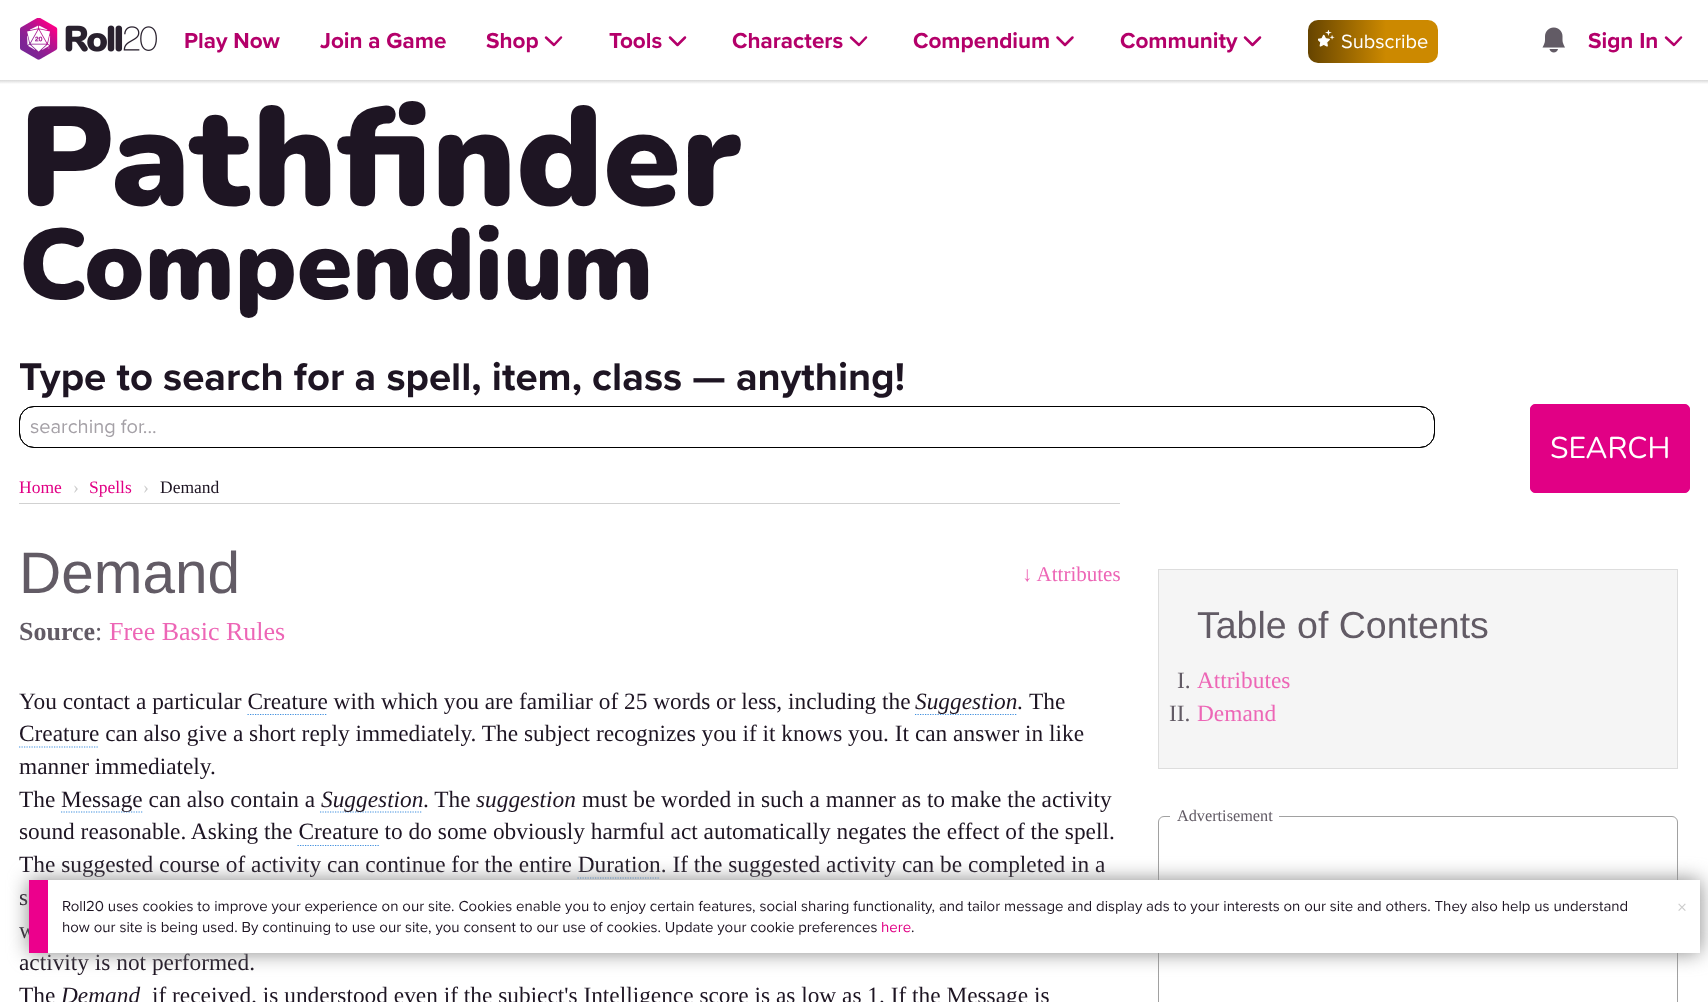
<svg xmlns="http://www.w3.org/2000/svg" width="1708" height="1002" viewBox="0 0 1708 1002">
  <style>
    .t1 { font: bold 22.5px Proxima Nova; fill: #b4006a; }
    .t2 { font: 20px Proxima Nova; fill: #fff; }
    .t3 { font: 900 140px Nunito; fill: #1e1523; }
    .t4 { font: 900 100px Nunito; fill: #1e1523; }
    .t5 { font: bold 40px Proxima Nova; fill: #1e1523; }
    .t6 { font: 20px Proxima Nova; fill: #a5a1a7; }
    .t7 { font: 30px Nunito; fill: #fff; }
    .t8 { font: 17.5px Liberation Serif; fill: #e10085; }
    .t9 { font: 17.5px Liberation Serif; fill: #ccc; }
    .t10 { font: 17.5px Liberation Serif; fill: #1e1523; }
    .t11 { font: 58.5px Liberation Sans; fill: #625b65; }
    .t12 { font: 21px Liberation Serif; fill: #ed66b6; }
    .t13 { font: bold 26px Liberation Serif; fill: #625b65; }
    .t14 { font: 26px Liberation Serif; fill: #625b65; }
    .t15 { font: 26px Liberation Serif; fill: #ed66b6; }
    .t16 { font: 23.35px Liberation Serif; fill: #1e1523; }
    .t17 { font: italic 23.35px Liberation Serif; fill: #1e1523; }
    .t18 { font: 37.5px Liberation Sans; fill: #625b65; }
    .t19 { font: 23.35px Liberation Serif; fill: #625b65; }
    .t20 { font: 23.35px Liberation Serif; fill: #ed66b6; }
    .t21 { font: 16.25px Liberation Serif; fill: #625b65; }
    .t22 { font: 15px Proxima Nova; fill: #1e1523; }
    .t23 { font: 15px Proxima Nova; fill: #e10085; }
    .t24 { font: 20px Proxima Nova; fill: #ccc; }
  </style>
  <defs>
    <linearGradient id="g1" gradientUnits="userSpaceOnUse" x1="1438" y1="41" x2="1308" y2="41"><stop offset="0.4" stop-color="#cc8900"/><stop offset="1" stop-color="#640"/></linearGradient>
    <linearGradient id="g2" gradientUnits="userSpaceOnUse" x1="854" y1="80" x2="854" y2="84"><stop offset="0" stop-color="#d9d9d9"/><stop offset="1" stop-color="#fff"/></linearGradient>
  </defs>
  <rect width="100%" height="100%" fill="#fff"/>
  <image x="20" y="18" width="137" height="42" href="images/1.png"/>
  <text x="184" y="48" class="t1">Play Now</text>
  <text x="320" y="48" class="t1">Join a Game</text>
  <text x="486" y="48" class="t1">Shop</text>
  <path d="M546 37.5L554 45L561 37.5" fill="none" stroke="#b4006a" stroke-width="2.5" stroke-linecap="round" stroke-linejoin="round"/>
  <text x="609" y="48" class="t1">Tools</text>
  <path d="M670 37.5L677.5 45L685 37.5" fill="none" stroke="#b4006a" stroke-width="2.5" stroke-linecap="round" stroke-linejoin="round"/>
  <text x="732" y="48" class="t1">Characters</text>
  <path d="M851 37.5L859 45L866 37.5" fill="none" stroke="#b4006a" stroke-width="2.5" stroke-linecap="round" stroke-linejoin="round"/>
  <text x="913" y="48" class="t1">Compendium</text>
  <path d="M1057.5 37.5L1065 45L1072.5 37.5" fill="none" stroke="#b4006a" stroke-width="2.5" stroke-linecap="round" stroke-linejoin="round"/>
  <text x="1120" y="48" class="t1">Community</text>
  <path d="M1245 37.5L1252.5 45L1260 37.5" fill="none" stroke="#b4006a" stroke-width="2.5" stroke-linecap="round" stroke-linejoin="round"/>
  <rect x="1308" y="20" width="130" height="43" rx="10" fill="url(#g1)"/>
  <image x="1318" y="30" width="17" height="17" href="images/2.png"/>
  <text x="1341" y="48" class="t2">Subscribe</text>
  <image x="1542" y="27" width="23" height="26" href="images/3.png"/>
  <text x="1588" y="48" class="t1">Sign In</text>
  <path d="M1666 37.5L1674 45L1681 37.5" fill="none" stroke="#b4006a" stroke-width="2.5" stroke-linecap="round" stroke-linejoin="round"/>
  <rect x="0" y="80" width="1708" height="4" fill="url(#g2)"/>
  <text x="19" y="205" class="t3">Pathfinder</text>
  <text x="19" y="299" class="t4">Compendium</text>
  <text x="19" y="390" class="t5">Type to search for a spell, item, class — anything!</text>
  <rect x="19.5" y="406.5" width="1415" height="41" rx="14.5" fill="none" stroke="#000"/>
  <rect x="19.5" y="406.5" width="1415" height="41" rx="14.5" fill="none" stroke="#000"/>
  <text x="30" y="433" class="t6">searching for...</text>
  <rect x="1530.5" y="404.5" width="159" height="88" rx="4.5" fill="#e10085" stroke="#e10085"/>
  <text x="1550" y="458" class="t7">SEARCH</text>
  <rect x="19" y="503" width="1101" height="1" fill="#d1d1d1"/>
  <text x="19" y="493" class="t8">Home</text>
  <text x="73" y="493" class="t9">›</text>
  <text x="89" y="493" class="t8">Spells</text>
  <text x="143" y="493" class="t9">›</text>
  <text x="160" y="493" class="t10">Demand</text>
  <text x="19" y="593" class="t11">Demand</text>
  <text x="1022" y="581" class="t12">↓ Attributes</text>
  <text x="19" y="640" class="t13">Source</text>
  <text x="95" y="640" class="t14">:</text>
  <text x="109" y="640" class="t15">Free Basic Rules</text>
  <text x="19" y="709" class="t16">You contact a particular Creature with which you are familiar of 25 words or less, including the</text>
  <path d="M915 714.5H1017.5" fill="none" stroke="#418fde" stroke-width="1.2" stroke-dasharray="1.25 1.25"/>
  <text x="915" y="709" class="t17">Suggestion.</text>
  <text x="1029" y="709" class="t16">The</text>
  <path d="M247.5 714.5H327.5" fill="none" stroke="#418fde" stroke-width="1.2" stroke-dasharray="1.25 1.25"/>
  <path d="M19 747H99" fill="none" stroke="#418fde" stroke-width="1.2" stroke-dasharray="1.25 1.25"/>
  <text x="19" y="741" class="t16">Creature can also give a short reply immediately. The subject recognizes you if it knows you. It can answer in like</text>
  <text x="19" y="774" class="t16">manner immediately.</text>
  <text x="19" y="807" class="t16">The</text>
  <path d="M61 812H142.5" fill="none" stroke="#418fde" stroke-width="1.2" stroke-dasharray="1.25 1.25"/>
  <text x="61" y="807" class="t16">Message can also contain a</text>
  <path d="M320 812H422.5" fill="none" stroke="#418fde" stroke-width="1.2" stroke-dasharray="1.25 1.25"/>
  <text x="321" y="807" class="t17">Suggestion</text>
  <text x="423" y="807" class="t16">. The</text>
  <text x="476" y="807" class="t17">suggestion</text>
  <text x="582" y="807" class="t16">must be worded in such a manner as to make the activity</text>
  <text x="19" y="839" class="t16">sound reasonable. Asking the Creature to do some obviously harmful act automatically negates the effect of the spell.</text>
  <path d="M297.5 845.5H379" fill="none" stroke="#418fde" stroke-width="1.2" stroke-dasharray="1.25 1.25"/>
  <text x="19" y="872" class="t16">The suggested course of activity can continue for the entire Duration. If the suggested activity can be completed in a</text>
  <path d="M577.5 878H660" fill="none" stroke="#418fde" stroke-width="1.2" stroke-dasharray="1.25 1.25"/>
  <text x="19" y="905" class="t16">s</text>
  <text x="19" y="938" class="t16">w</text>
  <text x="19" y="970" class="t16">activity is not performed.</text>
  <text x="19" y="1003" class="t16">The</text>
  <text x="61" y="1003" class="t17">Demand</text>
  <text x="152" y="1003" class="t16">if received, is understood even if the subject's Intelligence score is as low as 1. If the Message is</text>
  <rect x="1158.5" y="569.5" width="519" height="199" fill="#f5f5f5" stroke="#ddd"/>
  <text x="1197" y="638" class="t18">Table of Contents</text>
  <text x="1177" y="688" class="t19">I.</text>
  <text x="1197" y="688" class="t20">Attributes</text>
  <text x="1169" y="721" class="t19">II.</text>
  <text x="1197" y="721" class="t20">Demand</text>
  <rect x="1158.5" y="816.5" width="519" height="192" rx="5.5" fill="none" stroke="#a1a1a1"/>
  <rect x="1170" y="816" width="109" height="1" fill="#fff"/>
  <text x="1177" y="821" class="t21">Advertisement</text>
  <rect x="29" y="880" width="1671" height="73" fill="#888" filter="blur(10px)"/>
  <rect x="48" y="880" width="1652" height="73" fill="#fff"/>
  <rect x="29" y="880" width="19" height="73" fill="#ec008c"/>
  <text x="62" y="911" class="t22">Roll20 uses cookies to improve your experience on our site. Cookies enable you to enjoy certain features, social sharing functionality, and tailor message and display ads to your interests on our site and others. They also help us understand</text>
  <text x="62" y="932" class="t22">how our site is being used. By continuing to use our site, you consent to our use of cookies. Update your cookie preferences</text>
  <text x="881" y="932" class="t23">here</text>
  <text x="911" y="932" class="t22">.</text>
  <text x="1677" y="914" class="t24">×</text>
</svg>
